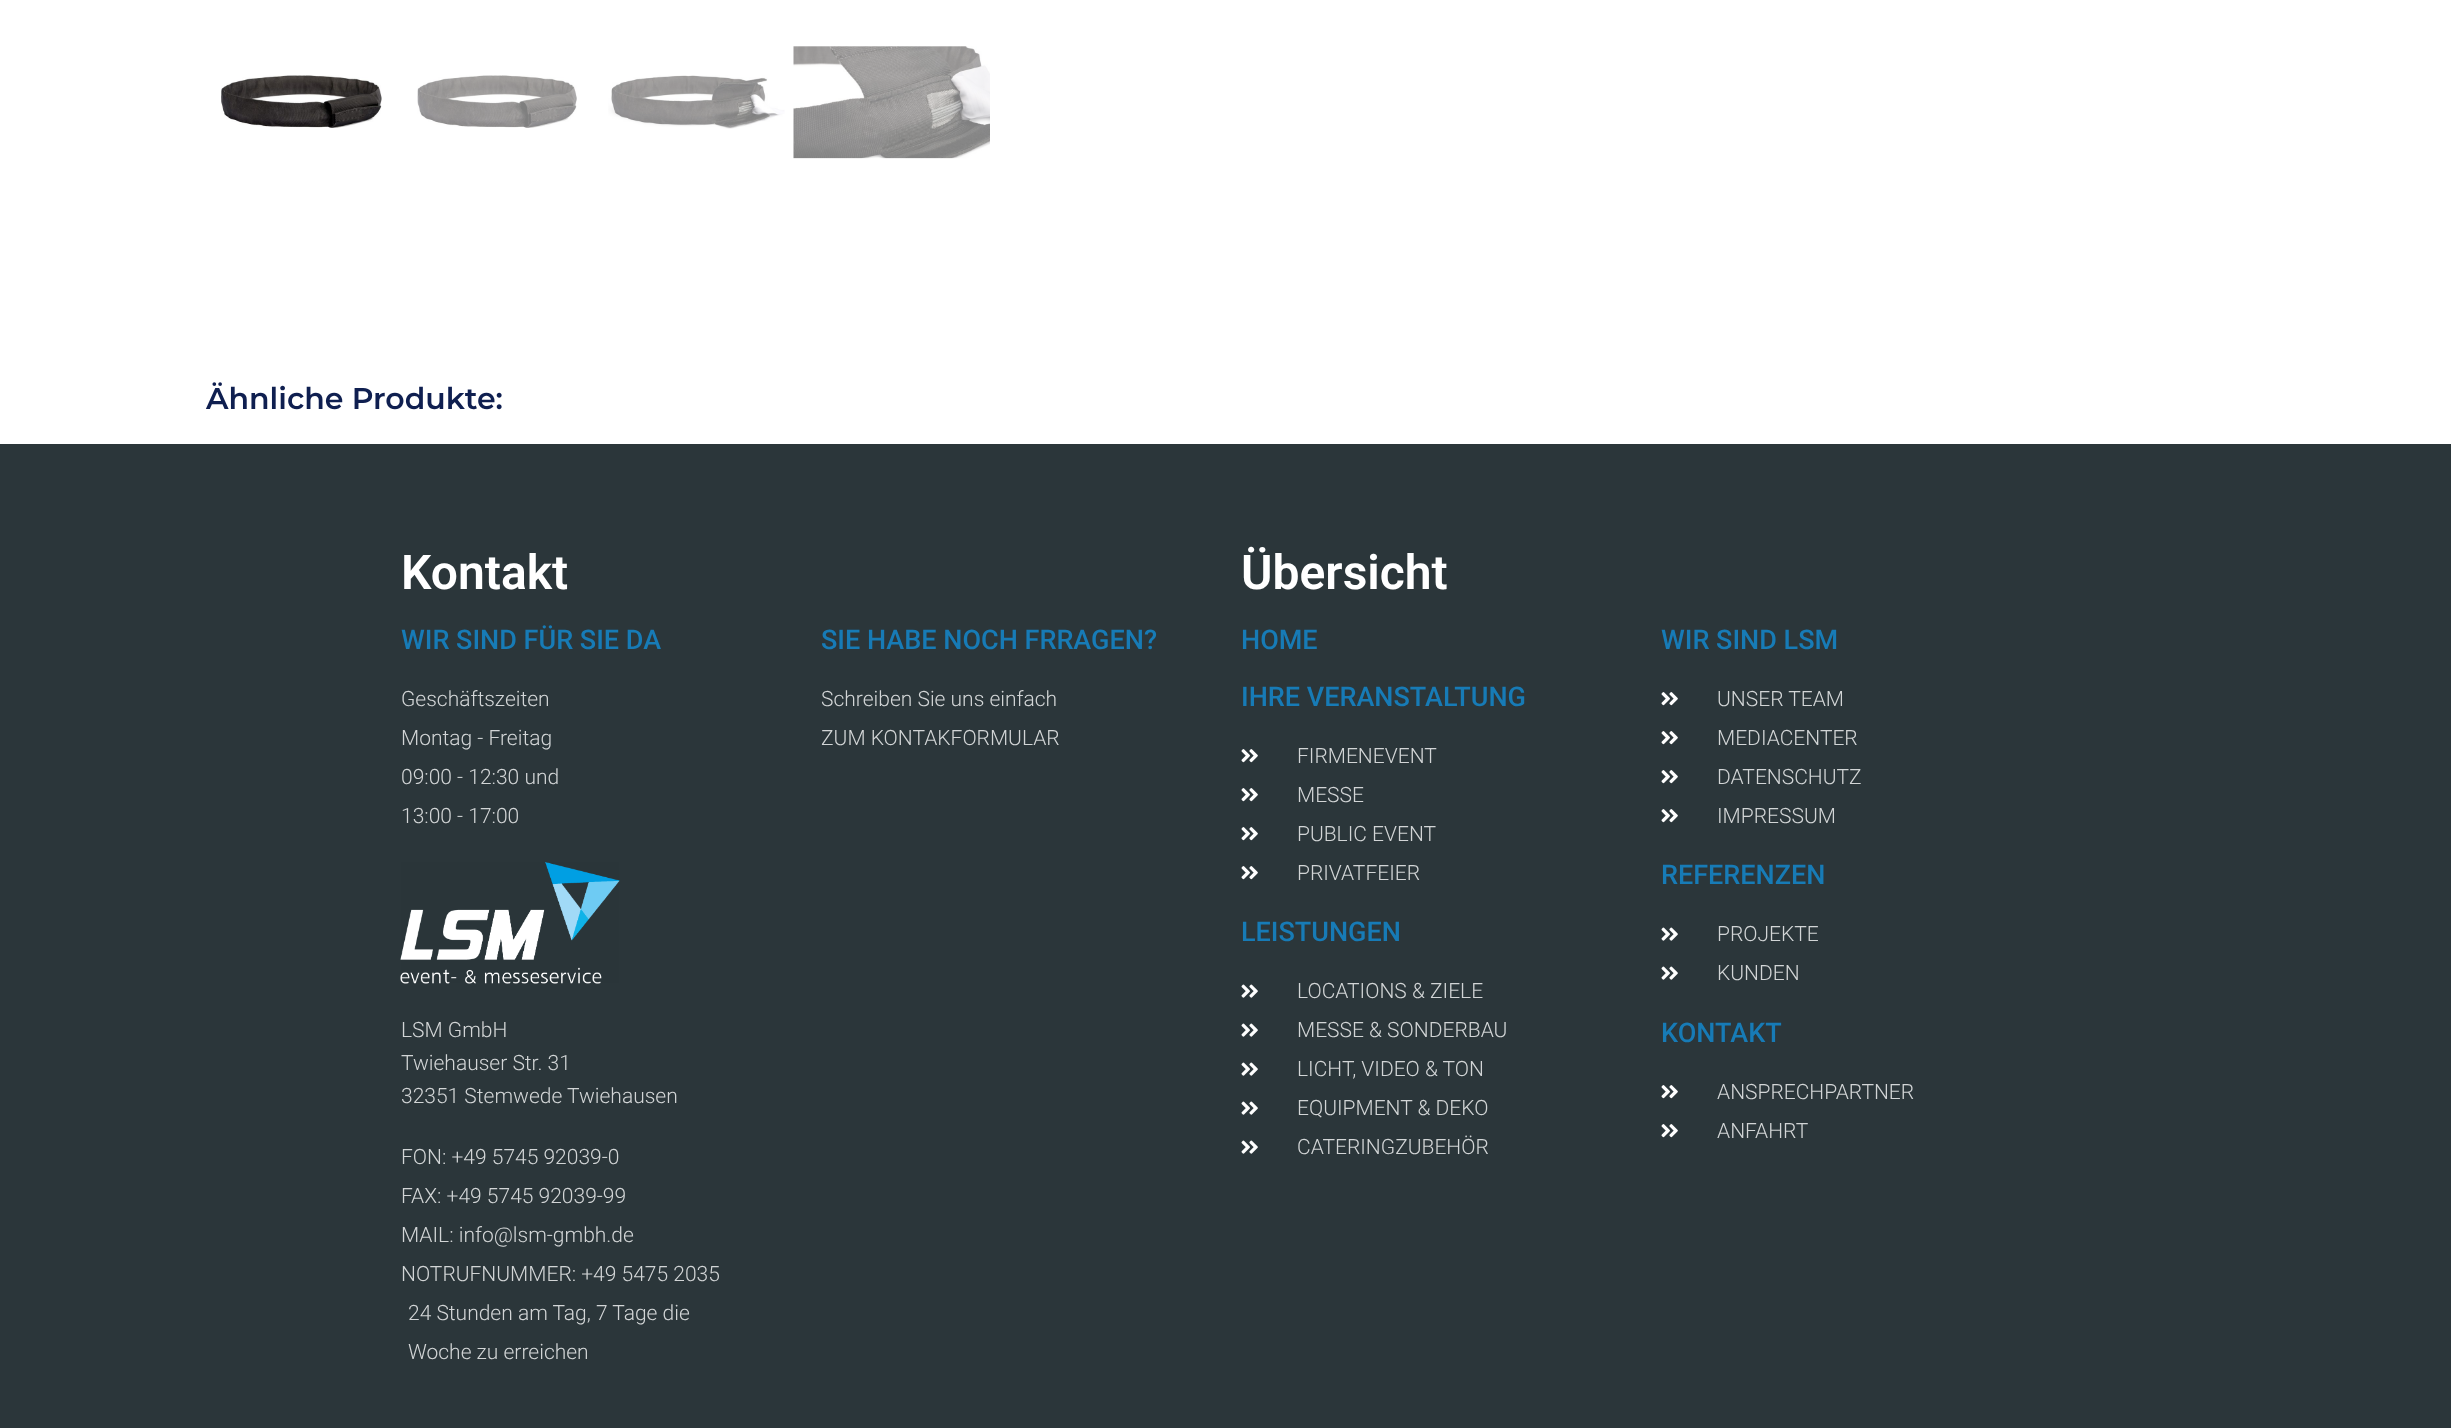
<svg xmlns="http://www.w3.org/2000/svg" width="2451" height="1428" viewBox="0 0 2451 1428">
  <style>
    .t1 { font: 600 30px Montserrat; fill: #0f1f50; }
    .t2 { font: 600 48px Roboto; fill: #fff; }
    .t3 { font: 500 27px Roboto; fill: #177bb6; }
    .t4 { font: 300 21px Roboto; fill: #d2d5d6; }
  </style>
  <rect width="100%" height="100%" fill="#fff"/>
  <image x="221" y="75" width="161" height="53" href="images/1.png"/>
  <image x="417" y="75" width="160" height="53" href="images/2.png"/>
  <image x="608" y="75" width="177" height="54" href="images/3.png"/>
  <image x="793" y="46" width="197" height="113" href="images/4.png"/>
  <text x="206" y="409" class="t1">Ähnliche Produkte:</text>
  <rect x="0" y="444" width="2451" height="984" fill="#2b363a"/>
  <text x="401" y="589" class="t2">Kontakt</text>
  <text x="1241" y="589" class="t2">Übersicht</text>
  <text x="401" y="649" class="t3">WIR SIND FÜR SIE DA</text>
  <text x="401" y="706" class="t4">Geschäftszeiten</text>
  <text x="401" y="745" class="t4">Montag - Freitag</text>
  <text x="401" y="784" class="t4">09:00 - 12:30 und</text>
  <text x="401" y="823" class="t4">13:00 - 17:00</text>
  <image x="400" y="862" width="220" height="122" href="images/5.png"/>
  <text x="401" y="1037" class="t4">LSM GmbH</text>
  <text x="401" y="1070" class="t4">Twiehauser Str. 31</text>
  <text x="401" y="1103" class="t4">32351 Stemwede Twiehausen</text>
  <text x="401" y="1164" class="t4">FON: +49 5745 92039-0</text>
  <text x="401" y="1203" class="t4">FAX: +49 5745 92039-99</text>
  <text x="401" y="1242" class="t4">MAIL: info@lsm-gmbh.de</text>
  <text x="401" y="1281" class="t4">NOTRUFNUMMER: +49 5475 2035</text>
  <text x="408" y="1320" class="t4">24 Stunden am Tag, 7 Tage die</text>
  <text x="408" y="1359" class="t4">Woche zu erreichen</text>
  <text x="821" y="649" class="t3">SIE HABE NOCH FRRAGEN?</text>
  <text x="821" y="706" class="t4">Schreiben Sie uns einfach</text>
  <text x="821" y="745" class="t4">ZUM KONTAKFORMULAR</text>
  <text x="1241" y="649" class="t3">HOME</text>
  <text x="1241" y="706" class="t3">IHRE VERANSTALTUNG</text>
  <image x="1241" y="749" width="17" height="14" href="images/6.png"/>
  <text x="1297" y="763" class="t4">FIRMENEVENT</text>
  <image x="1241" y="788" width="17" height="14" href="images/6.png"/>
  <text x="1297" y="802" class="t4">MESSE</text>
  <image x="1241" y="827" width="17" height="14" href="images/6.png"/>
  <text x="1297" y="841" class="t4">PUBLIC EVENT</text>
  <image x="1241" y="866" width="17" height="14" href="images/6.png"/>
  <text x="1297" y="880" class="t4">PRIVATFEIER</text>
  <text x="1241" y="941" class="t3">LEISTUNGEN</text>
  <image x="1241" y="984" width="17" height="14" href="images/7.png"/>
  <text x="1297" y="998" class="t4">LOCATIONS &amp; ZIELE</text>
  <image x="1241" y="1023" width="17" height="14" href="images/7.png"/>
  <text x="1297" y="1037" class="t4">MESSE &amp; SONDERBAU</text>
  <image x="1241" y="1062" width="17" height="14" href="images/7.png"/>
  <text x="1297" y="1076" class="t4">LICHT, VIDEO &amp; TON</text>
  <image x="1241" y="1101" width="17" height="14" href="images/7.png"/>
  <text x="1297" y="1115" class="t4">EQUIPMENT &amp; DEKO</text>
  <image x="1241" y="1140" width="17" height="14" href="images/7.png"/>
  <text x="1297" y="1154" class="t4">CATERINGZUBEHÖR</text>
  <text x="1661" y="649" class="t3">WIR SIND LSM</text>
  <image x="1661" y="692" width="17" height="14" href="images/6.png"/>
  <text x="1717" y="706" class="t4">UNSER TEAM</text>
  <image x="1661" y="731" width="17" height="14" href="images/6.png"/>
  <text x="1717" y="745" class="t4">MEDIACENTER</text>
  <image x="1661" y="770" width="17" height="14" href="images/6.png"/>
  <text x="1717" y="784" class="t4">DATENSCHUTZ</text>
  <image x="1661" y="809" width="17" height="14" href="images/6.png"/>
  <text x="1717" y="823" class="t4">IMPRESSUM</text>
  <text x="1661" y="884" class="t3">REFERENZEN</text>
  <image x="1661" y="927" width="17" height="14" href="images/7.png"/>
  <text x="1717" y="941" class="t4">PROJEKTE</text>
  <image x="1661" y="966" width="17" height="14" href="images/7.png"/>
  <text x="1717" y="980" class="t4">KUNDEN</text>
  <text x="1661" y="1042" class="t3">KONTAKT</text>
  <image x="1661" y="1085" width="17" height="14" href="images/6.png"/>
  <text x="1717" y="1099" class="t4">ANSPRECHPARTNER</text>
  <image x="1661" y="1124" width="17" height="14" href="images/6.png"/>
  <text x="1717" y="1138" class="t4">ANFAHRT</text>
</svg>
